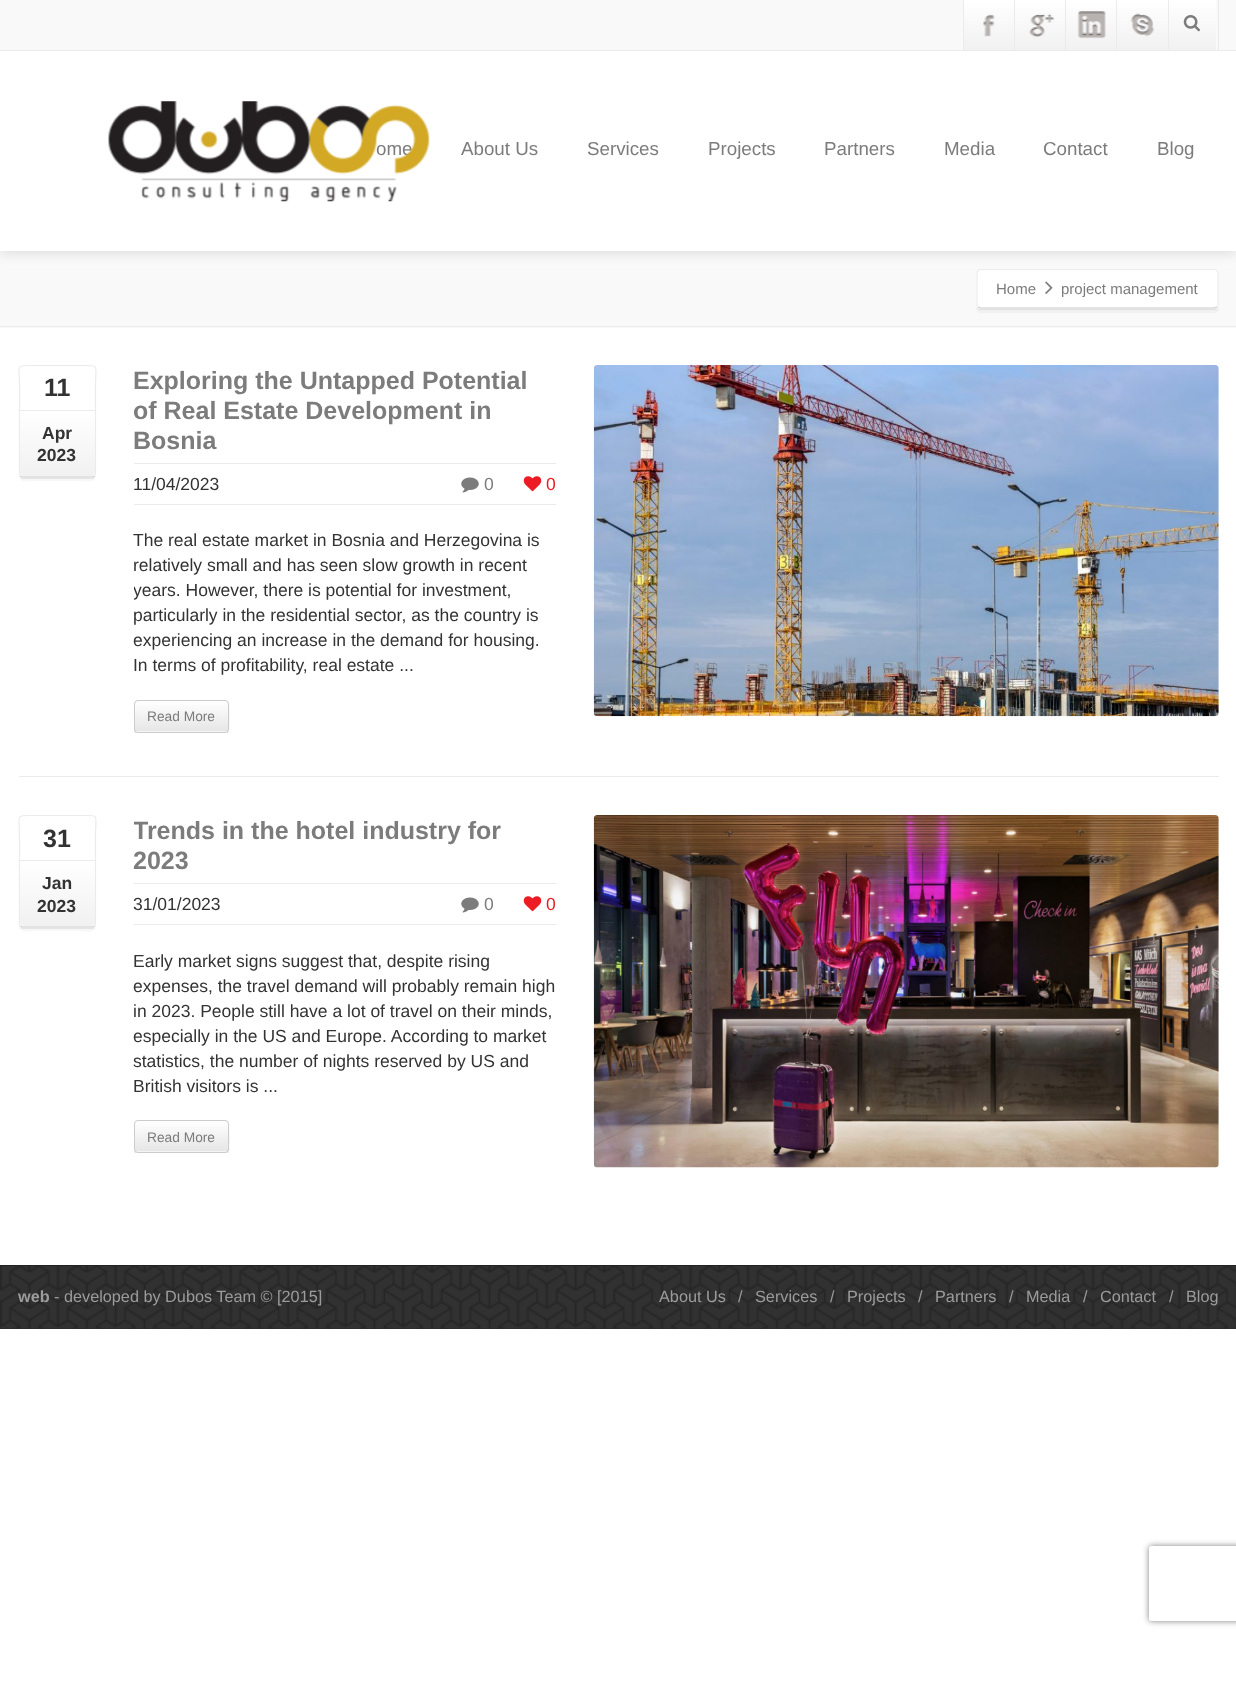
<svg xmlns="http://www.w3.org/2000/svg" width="1236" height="1708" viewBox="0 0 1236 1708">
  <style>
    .t1 { font: 18.75px Liberation Sans; fill: #7c7c7c; }
    .t2 { font: 15px Liberation Sans; fill: #7c7c7c; }
    .t3 { font: bold 25px Liberation Sans; fill: #333; }
    .t4 { font: bold 17.5px Liberation Sans; fill: #333; }
    .t5 { font: bold 25px Liberation Sans; fill: #7c7c7c; }
    .t6 { font: 17.5px Liberation Sans; fill: #333; }
    .t7 { font: 17.5px Liberation Sans; fill: #7c7c7c; }
    .t8 { font: 17.5px Liberation Sans; fill: #ed1c24; }
    .t9 { font: 13.75px Liberation Sans; fill: #7c7c7c; }
    .t10 { font: bold 16.25px Liberation Sans; fill: #9c9c9c; }
    .t11 { font: 16.25px Liberation Sans; fill: #9c9c9c; }
  </style>
  <defs>
    <linearGradient id="g1" gradientUnits="userSpaceOnUse" x1="989" y1="0" x2="989" y2="50"><stop offset="0" stop-color="#fff"/><stop offset="1" stop-color="#f1f1f1"/></linearGradient>
    <linearGradient id="g2" gradientUnits="userSpaceOnUse" x1="1040" y1="0" x2="1040" y2="50"><stop offset="0" stop-color="#fff"/><stop offset="1" stop-color="#f1f1f1"/></linearGradient>
    <linearGradient id="g3" gradientUnits="userSpaceOnUse" x1="1091" y1="0" x2="1091" y2="50"><stop offset="0" stop-color="#fff"/><stop offset="1" stop-color="#f1f1f1"/></linearGradient>
    <linearGradient id="g4" gradientUnits="userSpaceOnUse" x1="1143" y1="0" x2="1143" y2="50"><stop offset="0" stop-color="#fff"/><stop offset="1" stop-color="#f1f1f1"/></linearGradient>
    <linearGradient id="g5" gradientUnits="userSpaceOnUse" x1="1193" y1="0" x2="1193" y2="50"><stop offset="0" stop-color="#fff"/><stop offset="1" stop-color="#f1f1f1"/></linearGradient>
    <linearGradient id="g6" gradientUnits="userSpaceOnUse" x1="58" y1="411" x2="58" y2="476"><stop offset="0" stop-color="#fff"/><stop offset="1" stop-color="#f1f1f1"/></linearGradient>
    <clipPath id="clip1"><rect x="134" y="365" width="422" height="368"/></clipPath>
    <clipPath id="clip2"><rect x="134" y="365" width="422" height="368"/></clipPath>
    <clipPath id="clip3"><rect x="134" y="700" width="95" height="33" rx="4"/></clipPath>
    <linearGradient id="g7" gradientUnits="userSpaceOnUse" x1="181" y1="701" x2="181" y2="731"><stop offset="0" stop-color="#fff"/><stop offset="1" stop-color="#e6e6e6"/></linearGradient>
    <linearGradient id="g8" gradientUnits="userSpaceOnUse" x1="58" y1="861" x2="58" y2="926"><stop offset="0" stop-color="#fff"/><stop offset="1" stop-color="#f1f1f1"/></linearGradient>
    <clipPath id="clip4"><rect x="134" y="815" width="422" height="338"/></clipPath>
    <clipPath id="clip5"><rect x="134" y="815" width="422" height="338"/></clipPath>
    <clipPath id="clip6"><rect x="134" y="1120" width="95" height="33" rx="4"/></clipPath>
    <linearGradient id="g9" gradientUnits="userSpaceOnUse" x1="181" y1="1121" x2="181" y2="1151"><stop offset="0" stop-color="#fff"/><stop offset="1" stop-color="#e6e6e6"/></linearGradient>
    <clipPath id="clip7"><path d="M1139 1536H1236V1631H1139ZM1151.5 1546H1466.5C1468 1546 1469 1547 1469 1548.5V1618.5C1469 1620 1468 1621 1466.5 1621H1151.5C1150 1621 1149 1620 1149 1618.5V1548.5C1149 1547 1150 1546 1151.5 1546Z" clip-rule="evenodd"/></clipPath>
  </defs>
  <rect width="100%" height="100%" fill="#fff"/>
  <rect x="0" y="251" width="1236" height="77" fill="#f9f9f9"/>
  <path d="M976 273V306C976 308 978 310 980 310H1215C1217 310 1219 308 1219 306V273V305C1219 307 1217 309 1215 309H980C978 309 976 307 976 305Z" fill="#e8e8e8"/>
  <path d="M976 276V309C976 311 978 313 980 313H1215C1217 313 1219 311 1219 309V276V305C1219 307 1217 309 1215 309H980C978 309 976 307 976 305Z" fill="#00000008"/>
  <rect x="976" y="269" width="243" height="40" rx="4" fill="#fff"/>
  <path d="M1217 307L1215 308H980L978 307" fill="none" stroke="#c7c7c7" stroke-width="1.2"/>
  <path d="M978 307L977 305V272.5L978 270.5L980 269.5H1215L1217 270.5L1218 272.5V305L1217 307" fill="none" stroke="#ebebeb" stroke-width="1.2"/>
  <rect x="0" y="54" width="1236" height="200" fill="#0000001a" filter="blur(6px)"/>
  <rect x="0" y="0" width="1236" height="50" fill="#f9f9f9"/>
  <rect x="0" y="50" width="1236" height="1" fill="#ebebeb"/>
  <rect x="964" y="0" width="50" height="50" fill="url(#g1)"/>
  <rect x="963" y="0" width="1" height="50" fill="#ebebeb"/>
  <image x="983" y="14" width="12" height="24" href="images/1.png"/>
  <rect x="1015" y="0" width="50" height="50" fill="url(#g2)"/>
  <rect x="1014" y="0" width="1" height="50" fill="#ebebeb"/>
  <image x="1029" y="13" width="26" height="24" href="images/2.png"/>
  <rect x="1066" y="0" width="50" height="50" fill="url(#g3)"/>
  <rect x="1065" y="0" width="1" height="50" fill="#ebebeb"/>
  <image x="1077" y="11" width="29" height="28" href="images/3.png"/>
  <rect x="1117" y="0" width="51" height="50" fill="url(#g4)"/>
  <rect x="1168" y="0" width="1" height="50" fill="#ebebeb"/>
  <rect x="1116" y="0" width="1" height="50" fill="#ebebeb"/>
  <image x="1130" y="13" width="25" height="24" href="images/4.png"/>
  <rect x="1218" y="0" width="1" height="50" fill="#ebebeb"/>
  <rect x="1169" y="0" width="47" height="50" fill="url(#g5)"/>
  <image x="1183" y="15" width="17" height="17" href="images/5.png"/>
  <rect x="0" y="51" width="1236" height="200" fill="#fff"/>
  <text x="376" y="155" class="t1">ome</text>
  <image x="108" y="101" width="322" height="101" href="images/6.png"/>
  <text x="461" y="155" class="t1">About Us</text>
  <text x="587" y="155" class="t1">Services</text>
  <text x="708" y="155" class="t1">Projects</text>
  <text x="824" y="155" class="t1">Partners</text>
  <text x="944" y="155" class="t1">Media</text>
  <text x="1043" y="155" class="t1">Contact</text>
  <text x="1157" y="155" class="t1">Blog</text>
  <rect x="0" y="326" width="1236" height="1" fill="#ebebeb"/>
  <text x="996" y="294" class="t2">Home</text>
  <image x="1045" y="281" width="8" height="13" href="images/7.png"/>
  <text x="1061" y="294" class="t2">project management</text>
  <rect x="19" y="776" width="1200" height="1" fill="#ebebeb"/>
  <path d="M19 475C19 477 21 479 23 479H92C94 479 96 477 96 475C95 477 94 478 92 478H22C21 478 20 477 19 475Z" fill="#ededed"/>
  <path d="M19 475C19 484 27 481 34 481H80C88 481 96 484 96 475C95 477 94 478 92 478H22C21 478 20 477 19 475Z" fill="#00000008"/>
  <rect x="19" y="365" width="77" height="113" rx="4" fill="#fff"/>
  <path d="M94.5 476L93 477H22L20.5 476" fill="none" stroke="#c7c7c7" stroke-width="1.2"/>
  <path d="M20.5 476L19.5 474V386C19.5 364 14.5 365.5 34 365.5H81C100.5 365.5 95.5 364 95.5 386V474L94.5 476" fill="none" stroke="#ebebeb" stroke-width="1.2"/>
  <text x="44" y="396" class="t3">11</text>
  <path d="M20 411H95V472C95 474 93 476 91 476H24C22 476 20 474 20 472Z" fill="url(#g6)"/>
  <rect x="20" y="410" width="75" height="1" fill="#ebebeb"/>
  <text x="42" y="439" class="t4">Apr</text>
  <text x="37" y="461" class="t4">2023</text>
  <text x="133" y="389" class="t5">Exploring the Untapped Potential</text>
  <text x="133" y="419" class="t5">of Real Estate Development in</text>
  <text x="133" y="449" class="t5">Bosnia</text>
  <rect x="134" y="463" width="422" height="1" fill="#ebebeb"/>
  <rect x="134" y="504" width="422" height="1" fill="#ebebeb"/>
  <text x="133" y="490" class="t6">11/04/2023</text>
  <image x="461" y="477" width="18" height="16" href="images/8.png"/>
  <text x="484" y="490" class="t7">0</text>
  <image x="523" y="476" width="19" height="16" href="images/9.png"/>
  <text x="546" y="490" class="t8">0</text>
  <text x="133" y="546" class="t6">The real estate market in Bosnia and Herzegovina is</text>
  <text x="133" y="571" class="t6">relatively small and has seen slow growth in recent</text>
  <g clip-path="url(#clip1)">
    <text x="133" y="596" class="t6">years. However, there is potential for investment,</text>
  </g>
  <text x="133" y="621" class="t6">particularly in the residential sector, as the country is</text>
  <text x="133" y="646" class="t6">experiencing an increase in the demand for housing.</text>
  <text x="133" y="671" class="t6">In terms of profitability, real estate ...</text>
  <g clip-path="url(#clip1)">
    <path d="M134 730C134 737 145 734 152 734H210C229 734 229 738 229 722V704C229 708 230 729 228 731L225 732H137C136 732 134 731 134 730Z" fill="#ebebeb"/>
  </g>
  <g clip-path="url(#clip2)">
    <rect x="134" y="703" width="95" height="32" rx="4" fill="#0000000d" filter="blur(1px)"/>
  </g>
  <rect x="134" y="700" width="95" height="33" rx="4" fill="#f5f5f5"/>
  <g clip-path="url(#clip3)">
    <rect x="134" y="701" width="95" height="30" fill="url(#g7)"/>
  </g>
  <rect x="134.5" y="700.5" width="94" height="32" rx="3.5" fill="none" stroke="#ccc"/>
  <text x="147" y="721" class="t9">Read More</text>
  <image x="593" y="365" width="626" height="352" href="images/10.png"/>
  <path d="M19 925C19 927 21 929 23 929H92C94 929 96 927 96 925C95 927 94 928 92 928H22C21 928 20 927 19 925Z" fill="#ededed"/>
  <path d="M19 925C19 934 27 931 34 931H80C88 931 96 934 96 925C95 927 94 928 92 928H22C21 928 20 927 19 925Z" fill="#00000008"/>
  <rect x="19" y="815" width="77" height="113" rx="4" fill="#fff"/>
  <path d="M94.5 926L93 927H22L20.5 926" fill="none" stroke="#c7c7c7" stroke-width="1.2"/>
  <path d="M20.5 926L19.5 924V836C19.5 814 14.5 815.5 34 815.5H81C100.5 815.5 95.5 814 95.5 836V924L94.5 926" fill="none" stroke="#ebebeb" stroke-width="1.2"/>
  <text x="43" y="847" class="t3">31</text>
  <path d="M20 861H95V922C95 924 93 926 91 926H24C22 926 20 924 20 922Z" fill="url(#g8)"/>
  <rect x="20" y="860" width="75" height="1" fill="#ebebeb"/>
  <text x="42" y="889" class="t4">Jan</text>
  <text x="37" y="912" class="t4">2023</text>
  <g clip-path="url(#clip4)">
    <text x="133" y="839" class="t5">Trends in the hotel industry for</text>
  </g>
  <text x="133" y="869" class="t5">2023</text>
  <rect x="134" y="883" width="422" height="1" fill="#ebebeb"/>
  <rect x="134" y="924" width="422" height="1" fill="#ebebeb"/>
  <text x="133" y="910" class="t6">31/01/2023</text>
  <image x="461" y="897" width="18" height="16" href="images/8.png"/>
  <text x="484" y="910" class="t7">0</text>
  <image x="523" y="896" width="19" height="16" href="images/9.png"/>
  <text x="546" y="910" class="t8">0</text>
  <text x="133" y="967" class="t6">Early market signs suggest that, despite rising</text>
  <text x="133" y="992" class="t6">expenses, the travel demand will probably remain high</text>
  <text x="133" y="1017" class="t6">in 2023. People still have a lot of travel on their minds,</text>
  <text x="133" y="1042" class="t6">especially in the US and Europe. According to market</text>
  <text x="133" y="1067" class="t6">statistics, the number of nights reserved by US and</text>
  <text x="133" y="1092" class="t6">British visitors is ...</text>
  <g clip-path="url(#clip4)">
    <path d="M134 1150C134 1157 145 1154 152 1154H210C229 1154 229 1158 229 1142V1124C229 1128 230 1149 228 1151L225 1152H137C136 1152 134 1151 134 1150Z" fill="#ebebeb"/>
  </g>
  <g clip-path="url(#clip5)">
    <rect x="134" y="1123" width="95" height="32" rx="4" fill="#0000000d" filter="blur(1px)"/>
  </g>
  <rect x="134" y="1120" width="95" height="33" rx="4" fill="#f5f5f5"/>
  <g clip-path="url(#clip6)">
    <rect x="134" y="1121" width="95" height="30" fill="url(#g9)"/>
  </g>
  <rect x="134.5" y="1120.5" width="94" height="32" rx="3.5" fill="none" stroke="#ccc"/>
  <text x="147" y="1142" class="t9">Read More</text>
  <image x="593" y="815" width="626" height="353" href="images/11.png"/>
  <rect x="0" y="1328" width="1236" height="1" fill="#2d2d2d"/>
  <image x="0" y="1266" width="1236" height="63" href="images/12.png"/>
  <rect x="0" y="1265" width="1236" height="1" fill="#222"/>
  <text x="18" y="1302" class="t10">web</text>
  <text x="54" y="1302" class="t11">- developed by Dubos Team © [2015]</text>
  <text x="659" y="1302" class="t11">About Us</text>
  <text x="738" y="1302" class="t11">/</text>
  <text x="755" y="1302" class="t11">Services</text>
  <text x="830" y="1302" class="t11">/</text>
  <text x="847" y="1302" class="t11">Projects</text>
  <text x="918" y="1302" class="t11">/</text>
  <text x="935" y="1302" class="t11">Partners</text>
  <text x="1009" y="1302" class="t11">/</text>
  <text x="1026" y="1302" class="t11">Media</text>
  <text x="1083" y="1302" class="t11">/</text>
  <text x="1100" y="1302" class="t11">Contact</text>
  <text x="1169" y="1302" class="t11">/</text>
  <text x="1186" y="1302" class="t11">Blog</text>
  <g clip-path="url(#clip7)">
    <rect x="1149" y="1546" width="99" height="75" rx="2.5" fill="#808080" filter="blur(3px)"/>
  </g>
</svg>
